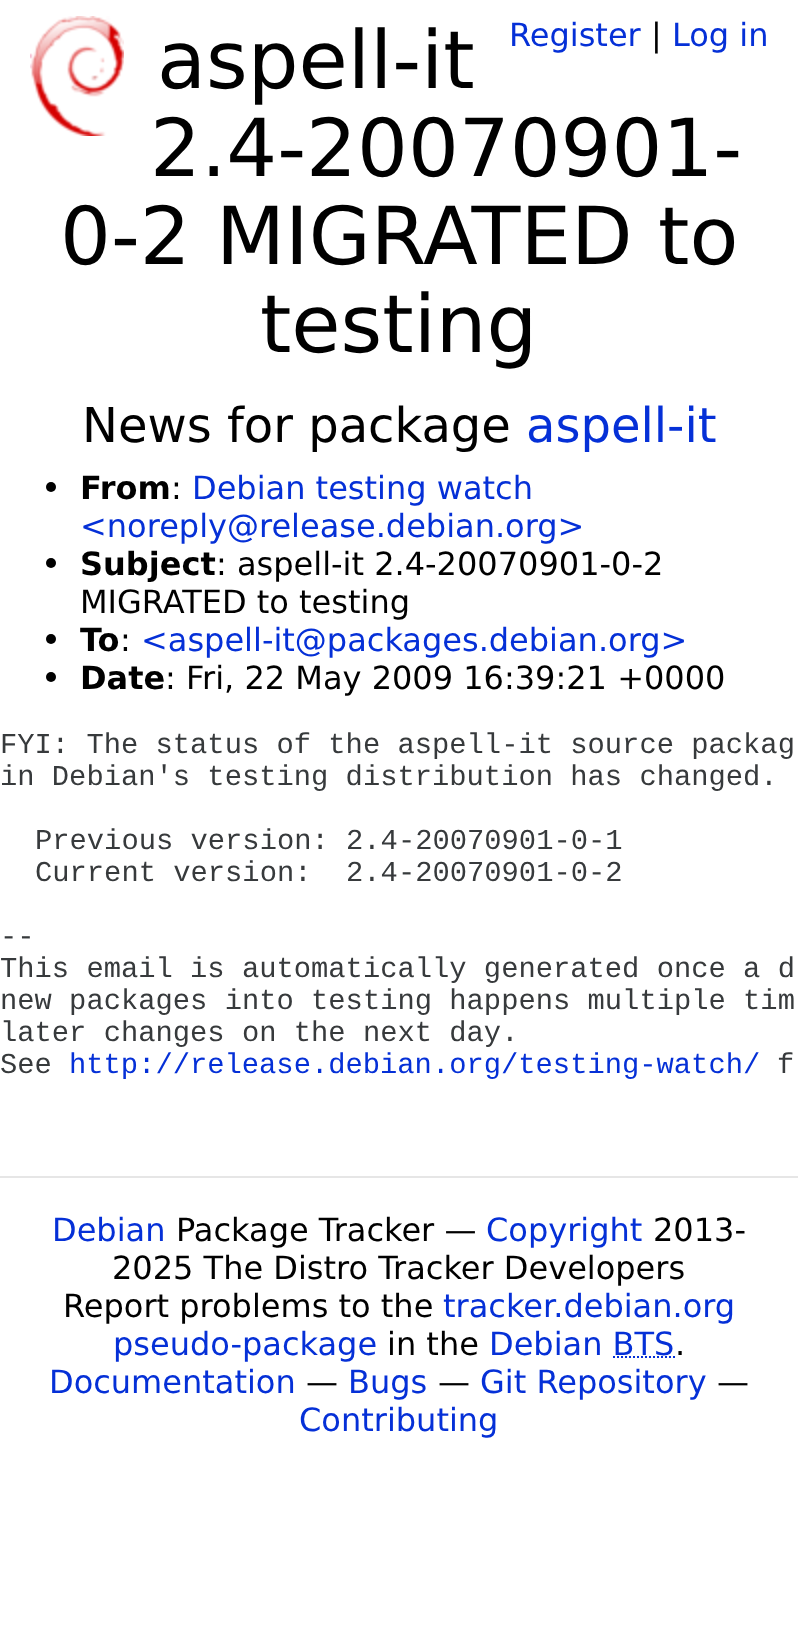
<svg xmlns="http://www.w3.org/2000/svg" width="798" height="1636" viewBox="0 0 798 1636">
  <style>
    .t1 { font: 32px DejaVu Sans; fill: #0530d7; }
    .t2 { font: 32px DejaVu Sans; fill: #000; }
    .t3 { font: 80px DejaVu Sans; fill: #000; }
    .t4 { font: 48px DejaVu Sans; fill: #000; }
    .t5 { font: 48px DejaVu Sans; fill: #0530d7; }
    .t6 { font: bold 32px DejaVu Sans; fill: #000; }
    .t7 { font: 28.8px Liberation Mono; fill: #373a3c; }
    .t8 { font: 28.8px Liberation Mono; fill: #0530d7; }
  </style>
  <rect width="100%" height="100%" fill="#fff"/>
  <image x="30" y="16" width="94" height="120" href="images/1.png"/>
  <text x="509" y="46" class="t1">Register</text>
  <text x="651" y="46" class="t2">|</text>
  <text x="672" y="46" class="t1">Log in</text>
  <text x="157" y="88" class="t3">aspell-it</text>
  <text x="150" y="176" class="t3">2.4-20070901-</text>
  <text x="60" y="264" class="t3">0-2 MIGRATED to</text>
  <text x="260" y="352" class="t3">testing</text>
  <text x="82" y="442" class="t4">News for package</text>
  <text x="526" y="442" class="t5">aspell-it</text>
  <circle cx="51" cy="487" r="5" fill="#000"/>
  <text x="80" y="499" class="t6">From</text>
  <text x="171" y="499" class="t2">:</text>
  <text x="192" y="499" class="t1">Debian testing watch</text>
  <text x="80" y="537" class="t1">&lt;noreply@release.debian.org&gt;</text>
  <circle cx="51" cy="563" r="5" fill="#000"/>
  <text x="80" y="575" class="t6">Subject</text>
  <text x="216" y="575" class="t2">: aspell-it 2.4-20070901-0-2</text>
  <text x="80" y="613" class="t2">MIGRATED to testing</text>
  <circle cx="51" cy="639" r="5" fill="#000"/>
  <text x="80" y="651" class="t6">To</text>
  <text x="120" y="651" class="t2">:</text>
  <text x="141" y="651" class="t1">&lt;aspell-it@packages.debian.org&gt;</text>
  <circle cx="51" cy="677" r="5" fill="#000"/>
  <text x="80" y="689" class="t6">Date</text>
  <text x="165" y="689" class="t2">: Fri, 22 May 2009 16:39:21 +0000</text>
  <text x="0" y="753" class="t7">FYI: The status of the aspell-it source packag</text>
  <text x="0" y="785" class="t7">in Debian's testing distribution has changed.</text>
  <text x="35" y="849" class="t7">Previous version: 2.4-20070901-0-1</text>
  <text x="35" y="881" class="t7" xml:space="preserve">Current version:  2.4-20070901-0-2</text>
  <text x="0" y="945" class="t7">--</text>
  <text x="0" y="977" class="t7">This email is automatically generated once a d</text>
  <text x="0" y="1009" class="t7">new packages into testing happens multiple tim</text>
  <text x="0" y="1041" class="t7">later changes on the next day.</text>
  <text x="0" y="1073" class="t7">See</text>
  <text x="69" y="1073" class="t8">http://release.debian.org/testing-watch/</text>
  <text x="777" y="1073" class="t7">f</text>
  <rect x="0" y="1176" width="798" height="2" fill="#e6e6e6"/>
  <text x="52" y="1241" class="t1">Debian</text>
  <text x="176" y="1241" class="t2">Package Tracker —</text>
  <text x="486" y="1241" class="t1">Copyright</text>
  <text x="653" y="1241" class="t2">2013-</text>
  <text x="112" y="1279" class="t2">2025 The Distro Tracker Developers</text>
  <text x="63" y="1317" class="t2">Report problems to the</text>
  <text x="443" y="1317" class="t1">tracker.debian.org</text>
  <text x="113" y="1355" class="t1">pseudo-package</text>
  <text x="387" y="1355" class="t2">in the</text>
  <text x="489" y="1355" class="t1">Debian BTS</text>
  <path d="M613 1357H675" fill="none" stroke="#0530d7" stroke-width="2" stroke-dasharray="2 2"/>
  <text x="675" y="1355" class="t2">.</text>
  <text x="49" y="1393" class="t1">Documentation</text>
  <text x="306" y="1393" class="t2">—</text>
  <text x="348" y="1393" class="t1">Bugs</text>
  <text x="438" y="1393" class="t2">—</text>
  <text x="480" y="1393" class="t1">Git Repository</text>
  <text x="717" y="1393" class="t2">—</text>
  <text x="299" y="1431" class="t1">Contributing</text>
</svg>
